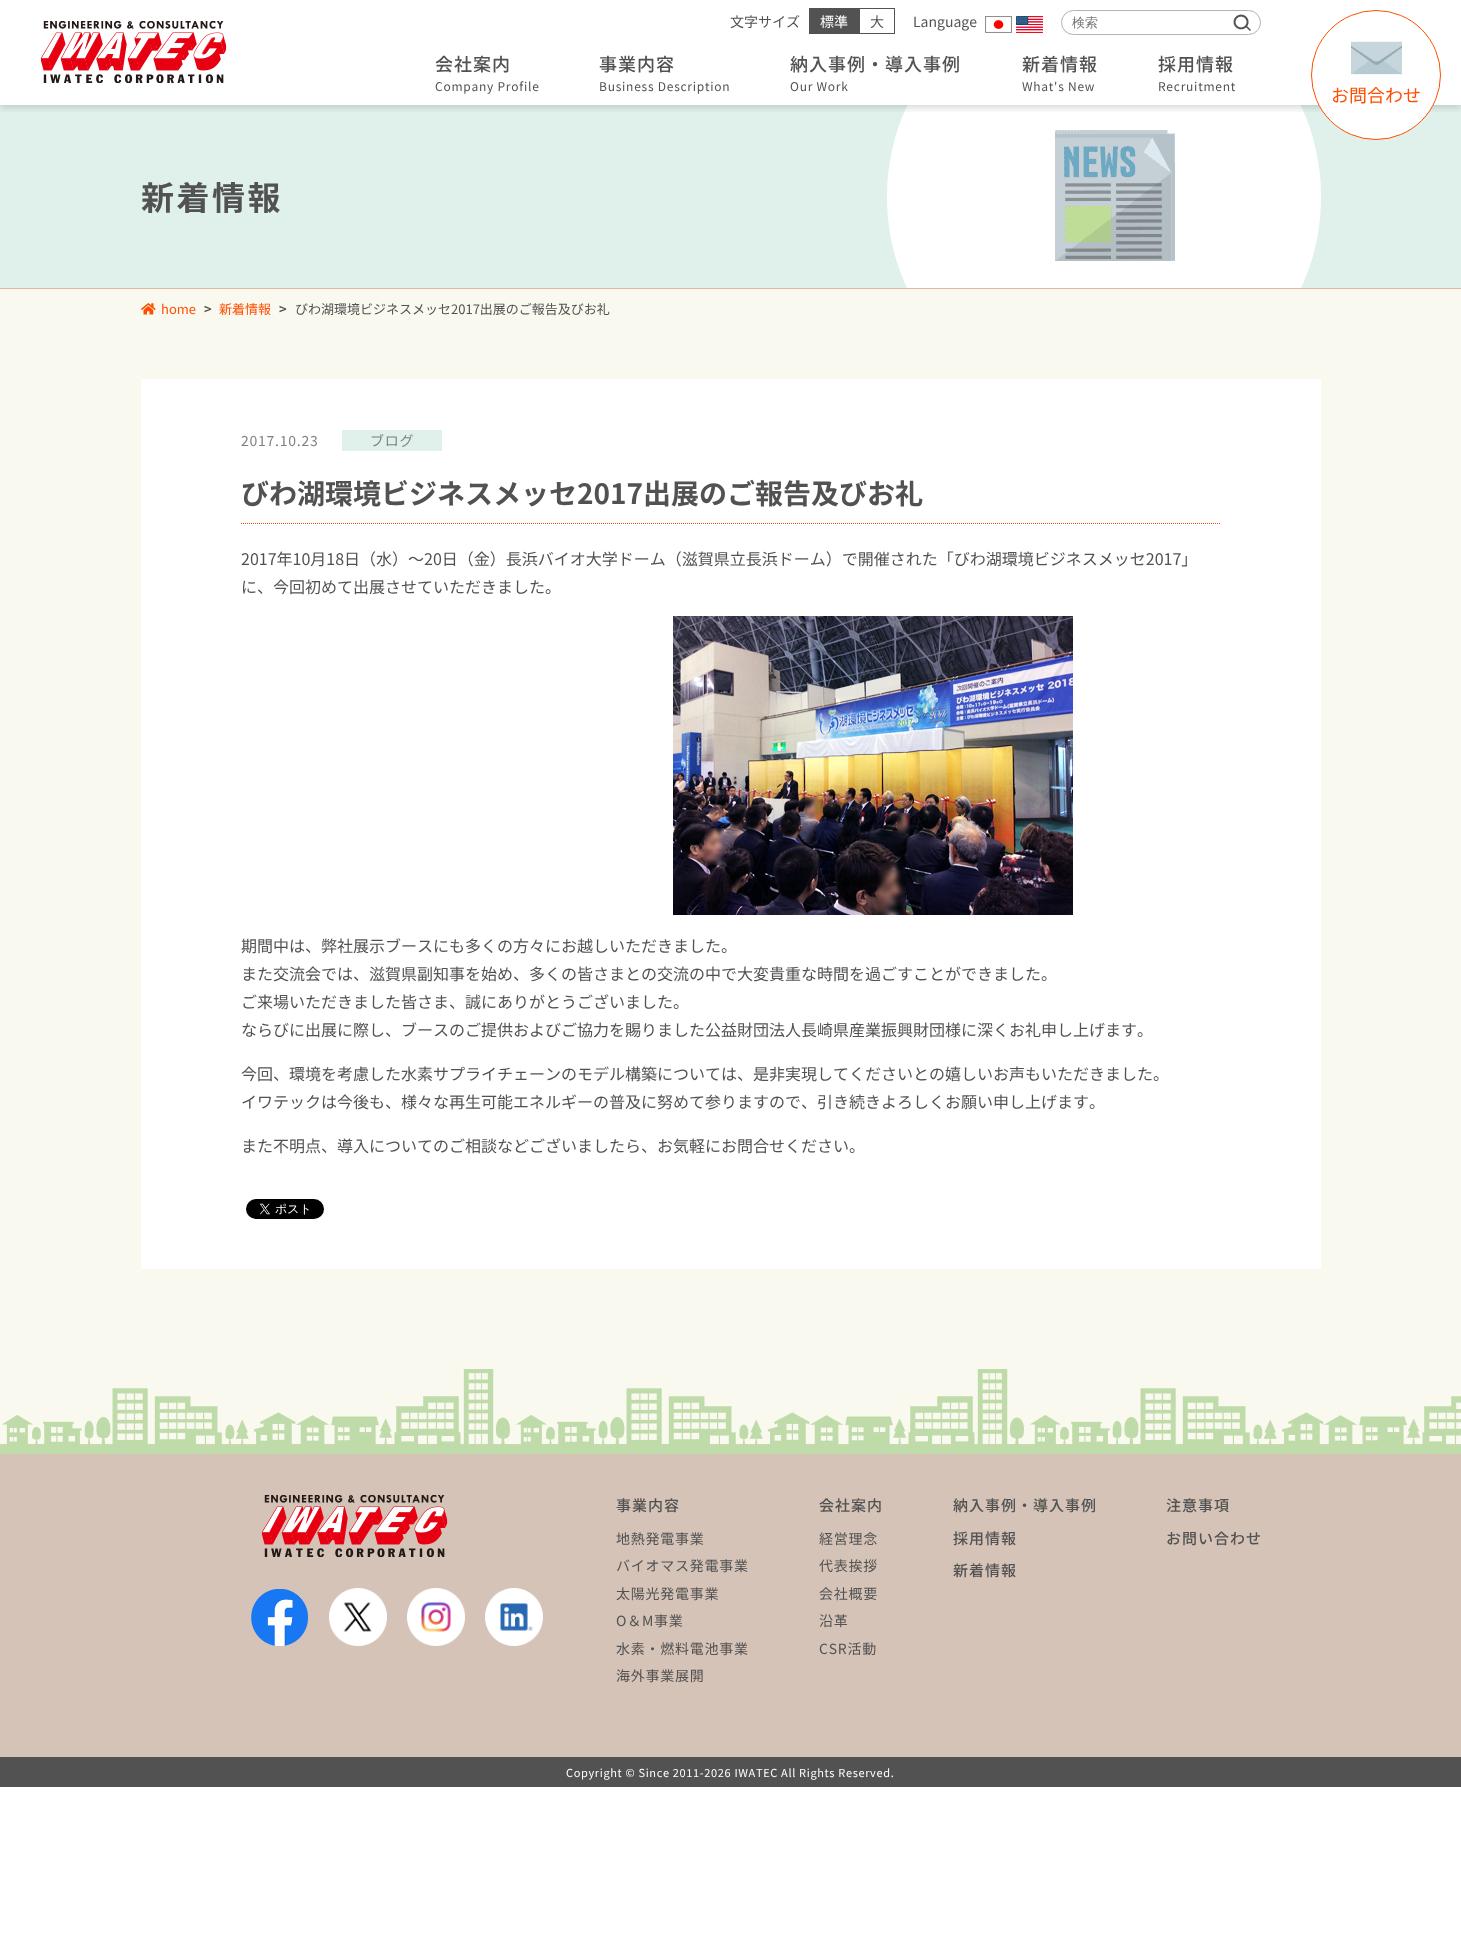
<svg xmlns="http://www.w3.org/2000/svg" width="1461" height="1941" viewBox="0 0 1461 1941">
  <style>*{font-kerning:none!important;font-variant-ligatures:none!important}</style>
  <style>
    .t1 { font: 14px Noto Sans JP; fill: #525252; }
    .t2 { font: 14px Noto Sans JP; fill: #fff; }
    .t3 { font: 500 13px WenQuanYi Zen Hei; fill: #757575; }
    .t4 { font: 500 18px Noto Sans JP; letter-spacing: 1px; fill: #525252; }
    .t5 { font: 12px Noto Sans JP; letter-spacing: 0.75px; fill: #525252; }
    .t6 { font: 18px Noto Sans JP; fill: #ff4e00; }
    .t7 { font: bold 33px Noto Sans JP; letter-spacing: 2.5px; fill: #525252; }
    .t8 { font: 13px Noto Sans JP; fill: #ff4e00; }
    .t9 { font: bold 13px Noto Sans JP; fill: #525252; }
    .t10 { font: 13px Noto Sans JP; fill: #525252; }
    .t11 { font: 14px Noto Sans JP; letter-spacing: 0.75px; fill: #808080; }
    .t12 { font: bold 28px Noto Sans JP; fill: #525252; }
    .t13 { font: 16px Noto Sans JP; fill: #525252; }
    .t14 { font: 500 15px Noto Sans JP; letter-spacing: 1px; fill: #525252; }
    .t15 { font: 14px Noto Sans JP; letter-spacing: 0.75px; fill: #525252; }
    .t16 { font: 11px Noto Sans JP; letter-spacing: 0.65px; fill: #fff; }
  </style>
  <defs>
    <clipPath id="clip1"><rect x="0" y="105" width="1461" height="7"/></clipPath>
  </defs>
  <rect width="100%" height="100%" fill="#fff"/>
  <rect x="0" y="105" width="1461" height="183" fill="#e0f1eb"/>
  <image x="887" y="105" width="434" height="183" href="images/6.png"/>
  <g clip-path="url(#clip1)">
    <rect x="0" y="3" width="1461" height="105" fill="#00000026" filter="blur(3.5px)"/>
  </g>
  <image x="40" y="21" width="187" height="62" href="images/1.png"/>
  <text x="730" y="27" class="t1">文字サイズ</text>
  <rect x="809" y="8" width="50" height="26" fill="#525252"/>
  <text x="820" y="27" class="t2">標準</text>
  <rect x="859.5" y="8.5" width="35" height="25" fill="none" stroke="#525252"/>
  <text x="870" y="27" class="t1">大</text>
  <text x="913" y="27" class="t1">Language</text>
  <image x="985" y="16" width="27" height="17" href="images/2.png"/>
  <image x="1016" y="16" width="27" height="17" href="images/3.png"/>
  <image x="1233" y="14" width="18" height="17" href="images/4.png"/>
  <rect x="1061.5" y="10.5" width="199" height="24" rx="12" fill="none" stroke="#b3b3b3"/>
  <text x="1072" y="27" class="t3">検索</text>
  <text x="435" y="71" class="t4">会社案内</text>
  <text x="435" y="91" class="t5">Company Profile</text>
  <text x="599" y="71" class="t4">事業内容</text>
  <text x="599" y="91" class="t5">Business Description</text>
  <text x="790" y="71" class="t4">納入事例・導入事例</text>
  <text x="790" y="91" class="t5">Our Work</text>
  <text x="1022" y="71" class="t4">新着情報</text>
  <text x="1022" y="91" class="t5">What's New</text>
  <text x="1158" y="71" class="t4">採用情報</text>
  <text x="1158" y="91" class="t5">Recruitment</text>
  <circle cx="1376" cy="75" r="64.5" fill="#fff" stroke="#ff4e00"/>
  <image x="1351" y="41" width="51" height="34" href="images/5.png"/>
  <text x="1331" y="102" class="t6">お問合わせ</text>
  <rect x="0" y="289" width="1461" height="1156" fill="#faf9ef"/>
  <rect x="0" y="288" width="1461" height="1" fill="#e0b799"/>
  <text x="141" y="210" class="t7">新着情報</text>
  <image x="141" y="303" width="15" height="12" href="images/7.png"/>
  <text x="161" y="314" class="t8">home</text>
  <text x="204" y="314" class="t9">&gt;</text>
  <text x="219" y="314" class="t8">新着情報</text>
  <text x="279" y="314" class="t9">&gt;</text>
  <text x="295" y="314" class="t10">びわ湖環境ビジネスメッセ2017出展のご報告及びお礼</text>
  <rect x="141" y="379" width="1180" height="890" fill="#fff"/>
  <text x="241" y="446" class="t11">2017.10.23</text>
  <rect x="342" y="430" width="100" height="21" fill="#e0f0eb"/>
  <text x="370" y="446" class="t11">ブログ</text>
  <path d="M241 523.5H1221" fill="none" stroke="#ff4e00" stroke-dasharray="1 1"/>
  <text x="241" y="504" class="t12">びわ湖環境ビジネスメッセ2017出展のご報告及びお礼</text>
  <text x="241" y="565" class="t13">2017年10月18日（水）～20日（金）長浜バイオ大学ドーム（滋賀県立長浜ドーム）で開催された「びわ湖環境ビジネスメッセ2017」</text>
  <text x="241" y="593" class="t13">に、今回初めて出展させていただきました。</text>
  <image x="673" y="616" width="400" height="299" href="images/8.png"/>
  <text x="241" y="952" class="t13">期間中は、弊社展示ブースにも多くの方々にお越しいただきました。</text>
  <text x="241" y="980" class="t13">また交流会では、滋賀県副知事を始め、多くの皆さまとの交流の中で大変貴重な時間を過ごすことができました。</text>
  <text x="241" y="1008" class="t13">ご来場いただきました皆さま、誠にありがとうございました。</text>
  <text x="241" y="1036" class="t13">ならびに出展に際し、ブースのご提供およびご協力を賜りました公益財団法人長崎県産業振興財団様に深くお礼申し上げます。</text>
  <text x="241" y="1080" class="t13">今回、環境を考慮した水素サプライチェーンのモデル構築については、是非実現してくださいとの嬉しいお声もいただきました。</text>
  <text x="241" y="1108" class="t13">イワテックは今後も、様々な再生可能エネルギーの普及に努めて参りますので、引き続きよろしくお願い申し上げます。</text>
  <text x="241" y="1152" class="t13">また不明点、導入についてのご相談などございましたら、お気軽にお問合せください。</text>
  <image x="246" y="1199" width="78" height="20" href="images/9.png"/>
  <image x="0" y="1369" width="1461" height="85" href="images/10.png"/>
  <rect x="0" y="1454" width="1461" height="303" fill="#d5c3b7"/>
  <image x="261" y="1495" width="187" height="62" href="images/11.png"/>
  <image x="251" y="1589" width="57" height="57" href="images/12.png"/>
  <image x="329" y="1588" width="58" height="58" href="images/13.png"/>
  <image x="407" y="1588" width="58" height="58" href="images/14.png"/>
  <image x="485" y="1588" width="58" height="58" href="images/15.png"/>
  <text x="616" y="1511" class="t14">事業内容</text>
  <text x="616" y="1544" class="t15">地熱発電事業</text>
  <text x="616" y="1571" class="t15">バイオマス発電事業</text>
  <text x="616" y="1599" class="t15">太陽光発電事業</text>
  <text x="616" y="1626" class="t15">O＆M事業</text>
  <text x="616" y="1654" class="t15">水素・燃料電池事業</text>
  <text x="616" y="1681" class="t15">海外事業展開</text>
  <text x="819" y="1511" class="t14">会社案内</text>
  <text x="819" y="1544" class="t15">経営理念</text>
  <text x="819" y="1571" class="t15">代表挨拶</text>
  <text x="819" y="1599" class="t15">会社概要</text>
  <text x="819" y="1626" class="t15">沿革</text>
  <text x="819" y="1654" class="t15">CSR活動</text>
  <text x="953" y="1511" class="t14">納入事例・導入事例</text>
  <text x="953" y="1544" class="t14">採用情報</text>
  <text x="953" y="1576" class="t14">新着情報</text>
  <text x="1166" y="1511" class="t14">注意事項</text>
  <text x="1166" y="1544" class="t14">お問い合わせ</text>
  <rect x="0" y="1757" width="1461" height="30" fill="#525252"/>
  <text x="566" y="1777" class="t16">Copyright © Since 2011-2026 IWATEC All Rights Reserved.</text>
</svg>
